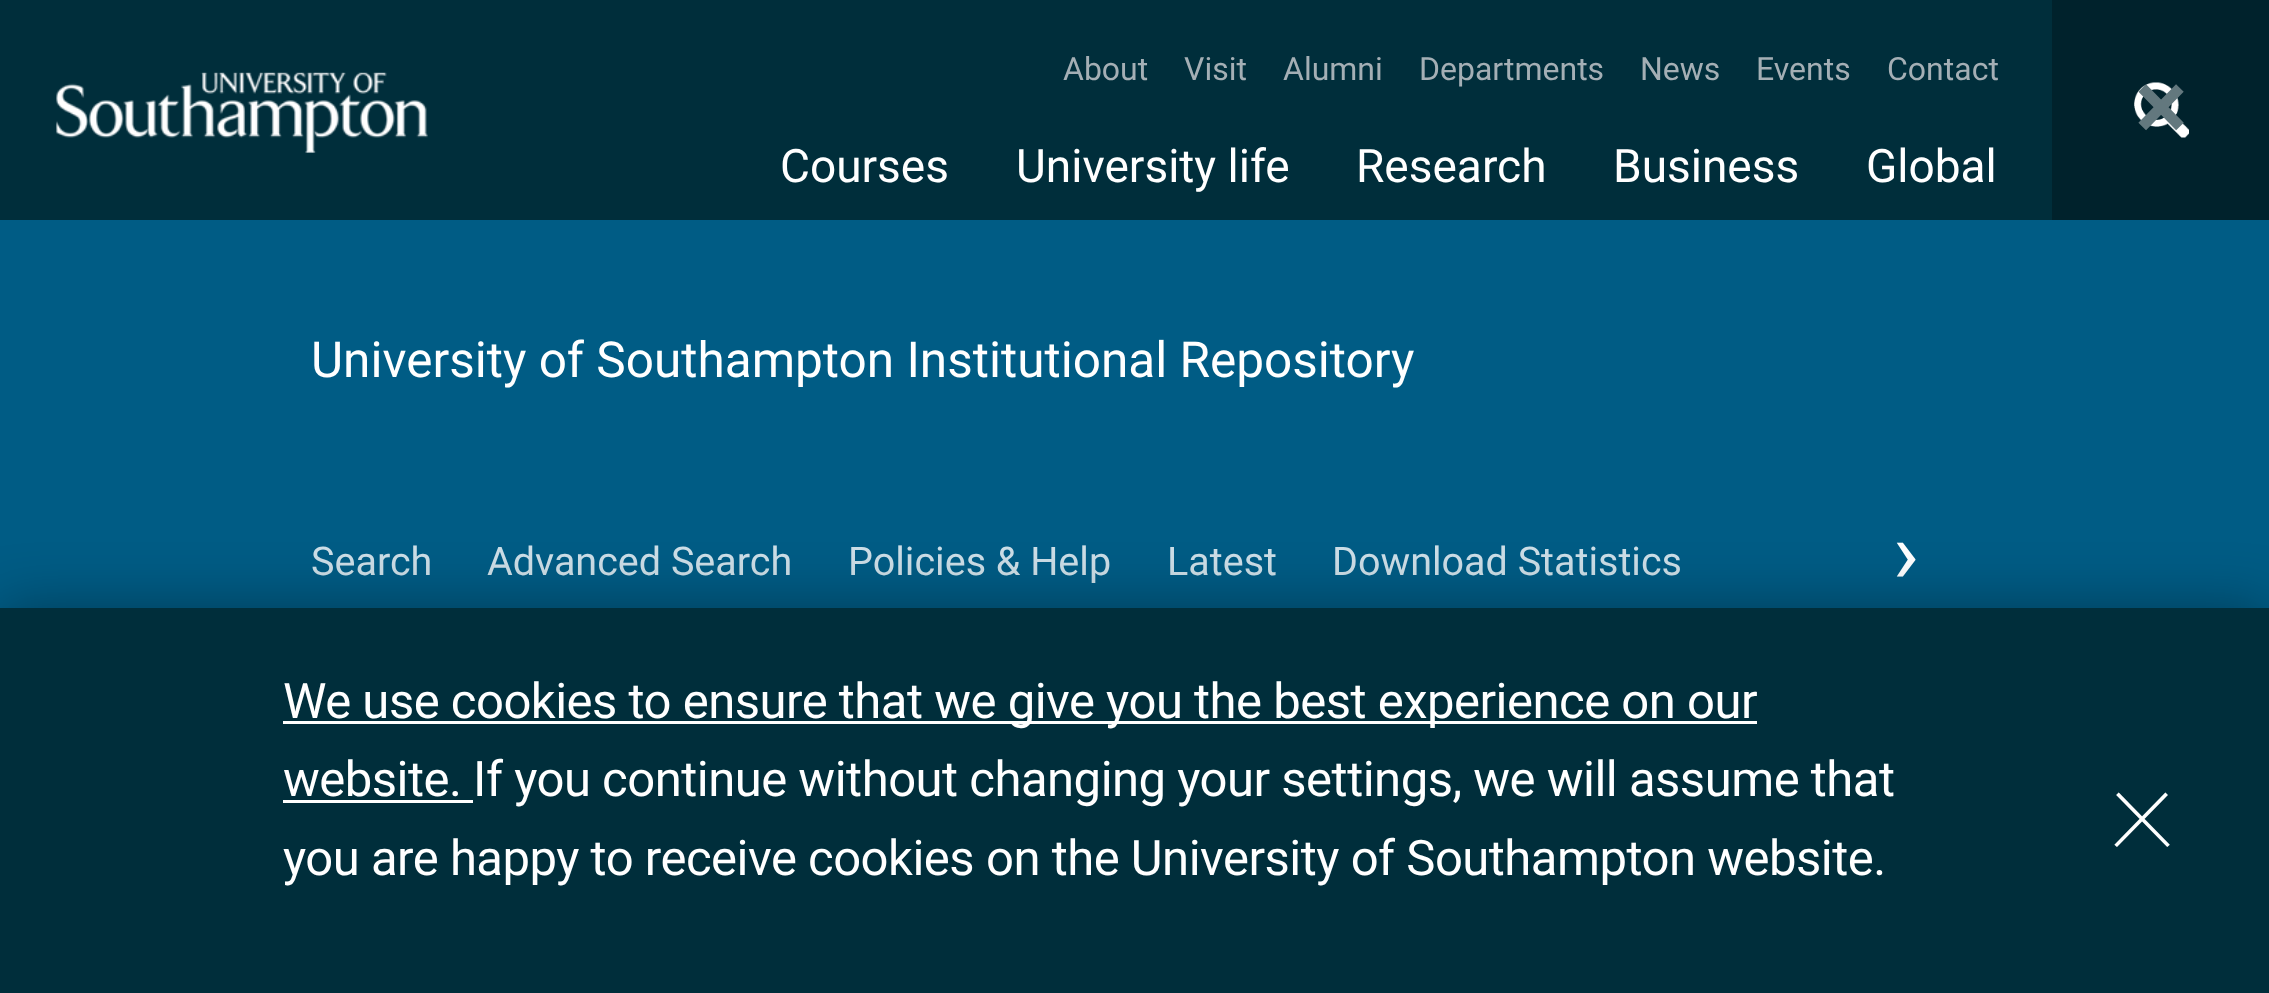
<svg xmlns="http://www.w3.org/2000/svg" width="2269" height="993" viewBox="0 0 2269 993">
  <style>
    .t1 { font: 32px Roboto; fill: #a4afb5; }
    .t2 { font: 46px Roboto; fill: #fff; }
    .t3 { font: 600 99px Roboto; fill: #63787e; }
    .t4 { font: 49.5px Roboto; fill: #fff; }
    .t5 { font: 39.5px Roboto; fill: #ccdee7; }
    .t6 { font: 87px Roboto; fill: #fff; }
    .t7 { font: 49px Roboto; letter-spacing: -0.5px; fill: #fff; }
    .t8 { font: 100 134px Roboto; fill: #fff; }
  </style>
  <rect width="100%" height="100%" fill="#005c85"/>
  <rect x="0" y="0" width="2052" height="220" fill="#002e3b"/>
  <image x="56" y="72" width="372" height="81" href="images/1.png"/>
  <text x="1063" y="80" class="t1">About</text>
  <text x="1184" y="80" class="t1">Visit</text>
  <text x="1283" y="80" class="t1">Alumni</text>
  <text x="1419" y="80" class="t1">Departments</text>
  <text x="1640" y="80" class="t1">News</text>
  <text x="1756" y="80" class="t1">Events</text>
  <text x="1887" y="80" class="t1">Contact</text>
  <text x="780" y="182" class="t2">Courses</text>
  <text x="1016" y="182" class="t2">University life</text>
  <text x="1356" y="182" class="t2">Research</text>
  <text x="1613" y="182" class="t2">Business</text>
  <text x="1866" y="182" class="t2">Global</text>
  <rect x="2052" y="0" width="217" height="220" fill="#00222c"/>
  <image x="2134" y="82" width="55" height="56" href="images/2.png"/>
  <text x="2135" y="140" class="t3">×</text>
  <text x="311" y="377" class="t4">University of Southampton Institutional Repository</text>
  <text x="311" y="575" class="t5">Search</text>
  <text x="487" y="575" class="t5">Advanced Search</text>
  <text x="848" y="575" class="t5">Policies &amp; Help</text>
  <text x="1167" y="575" class="t5">Latest</text>
  <text x="1332" y="575" class="t5">Download Statistics</text>
  <text x="1893" y="583" class="t6">›</text>
  <rect x="0" y="608" width="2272" height="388" fill="#00000059" filter="blur(30px)"/>
  <rect x="0" y="608" width="2269" height="385" fill="#002e3b"/>
  <rect x="283" y="721" width="1474" height="3" fill="#fff"/>
  <text x="283" y="718" class="t7">We use cookies to ensure that we give you the best experience on our</text>
  <rect x="283" y="800" width="190" height="3" fill="#fff"/>
  <text x="283" y="796" class="t7">website. If you continue without changing your settings, we will assume that</text>
  <text x="283" y="875" class="t7">you are happy to receive cookies</text>
  <text x="986" y="875" class="t7">on the University of Southampton website.</text>
  <text x="2108" y="847" class="t8">×</text>
</svg>
